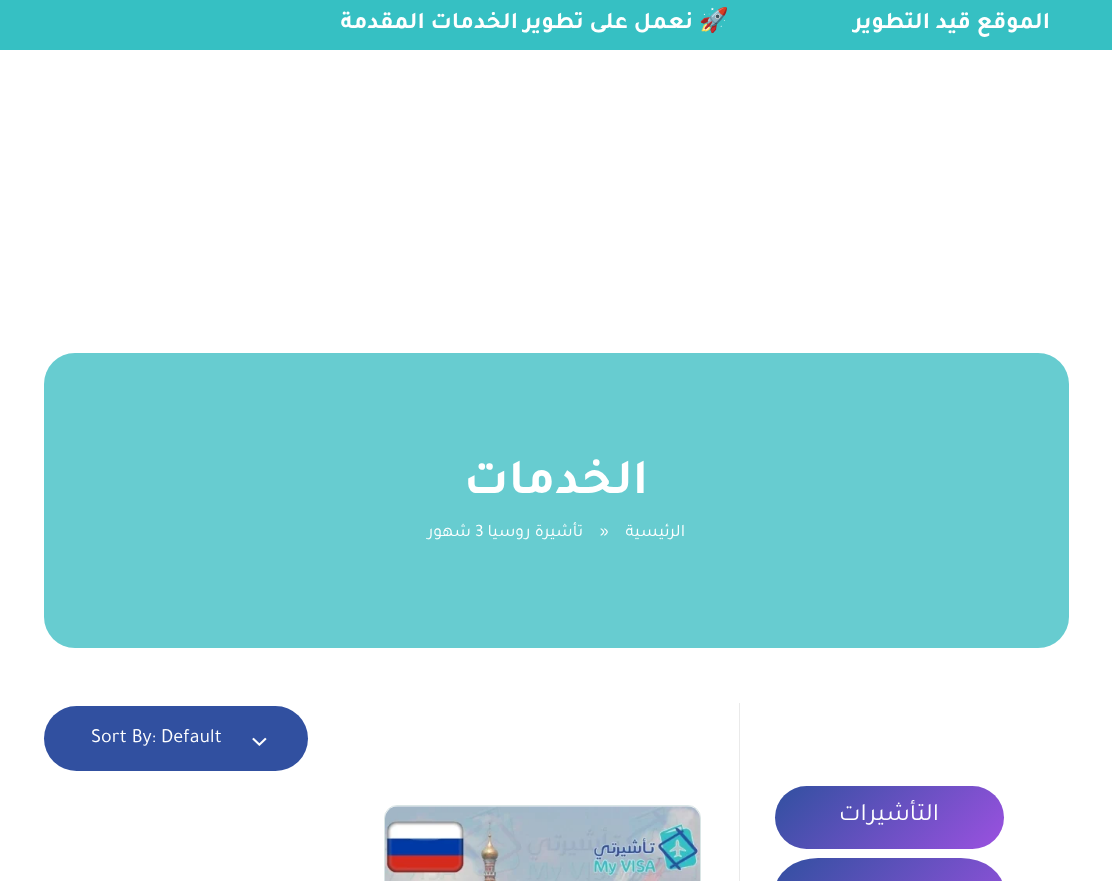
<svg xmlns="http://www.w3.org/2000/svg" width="1112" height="881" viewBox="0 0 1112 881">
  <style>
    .t1 { font: bold 23.75px Tajawal; direction: rtl; fill: #fff; }
    .t2 { font: bold 23.75px Noto Color Emoji; direction: rtl; fill: #fff; }
    .t3 { font: bold 50px Tajawal; direction: rtl; fill: #fff; }
    .t4 { font: 17.5px Tajawal; direction: rtl; fill: #fff; }
    .t5 { font: 17.5px Tajawal; fill: #fff; }
    .t6 { font: 20px Tajawal; fill: #fff; }
    .t7 { font: 25px Tajawal; direction: rtl; fill: #fff; }
  </style>
  <defs>
    <linearGradient id="g1" gradientUnits="userSpaceOnUse" x1="817" y1="745" x2="962" y2="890"><stop offset="0" stop-color="#3150a0"/><stop offset="1" stop-color="#9b51e0"/></linearGradient>
    <linearGradient id="g2" gradientUnits="userSpaceOnUse" x1="811" y1="822" x2="968" y2="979"><stop offset="0" stop-color="#3150a0"/><stop offset="1" stop-color="#9b51e0"/></linearGradient>
  </defs>
  <rect width="100%" height="100%" fill="#fff"/>
  <rect x="0" y="0" width="1112" height="50" fill="#36c0c3"/>
  <text x="1050" y="28" class="t1">الموقع قيد التطوير</text>
  <text x="729" y="28" class="t2">🚀</text>
  <text x="693" y="28" class="t1">نعمل على تطوير الخدمات المقدمة</text>
  <rect x="44" y="353" width="1025" height="295" rx="31" fill="#67ccd0"/>
  <text x="648" y="493" class="t3">الخدمات</text>
  <text x="685" y="536" class="t4">الرئيسية</text>
  <text x="600" y="536" class="t5">»</text>
  <text x="583" y="536" class="t4">تأشيرة روسيا</text>
  <text x="475" y="536" class="t5">3</text>
  <text x="471" y="536" class="t4">شهور</text>
  <rect x="44" y="706" width="264" height="65" rx="32.5" fill="#3150a0"/>
  <image x="252" y="737" width="15" height="9" href="images/1.png"/>
  <text x="91" y="742" class="t6">Sort By: Default</text>
  <rect x="384.5" y="805.5" width="316" height="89" rx="12.5" fill="none" stroke="#d9e5e5"/>
  <image x="385" y="806" width="315" height="75" href="images/2.png"/>
  <rect x="739" y="703" width="1" height="178" fill="#eaeaea"/>
  <rect x="775" y="786" width="229" height="63" rx="31.5" fill="url(#g1)"/>
  <text x="939" y="820" class="t7">التأشيرات</text>
  <rect x="775" y="858" width="229" height="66" rx="43" fill="url(#g2)"/>
</svg>
